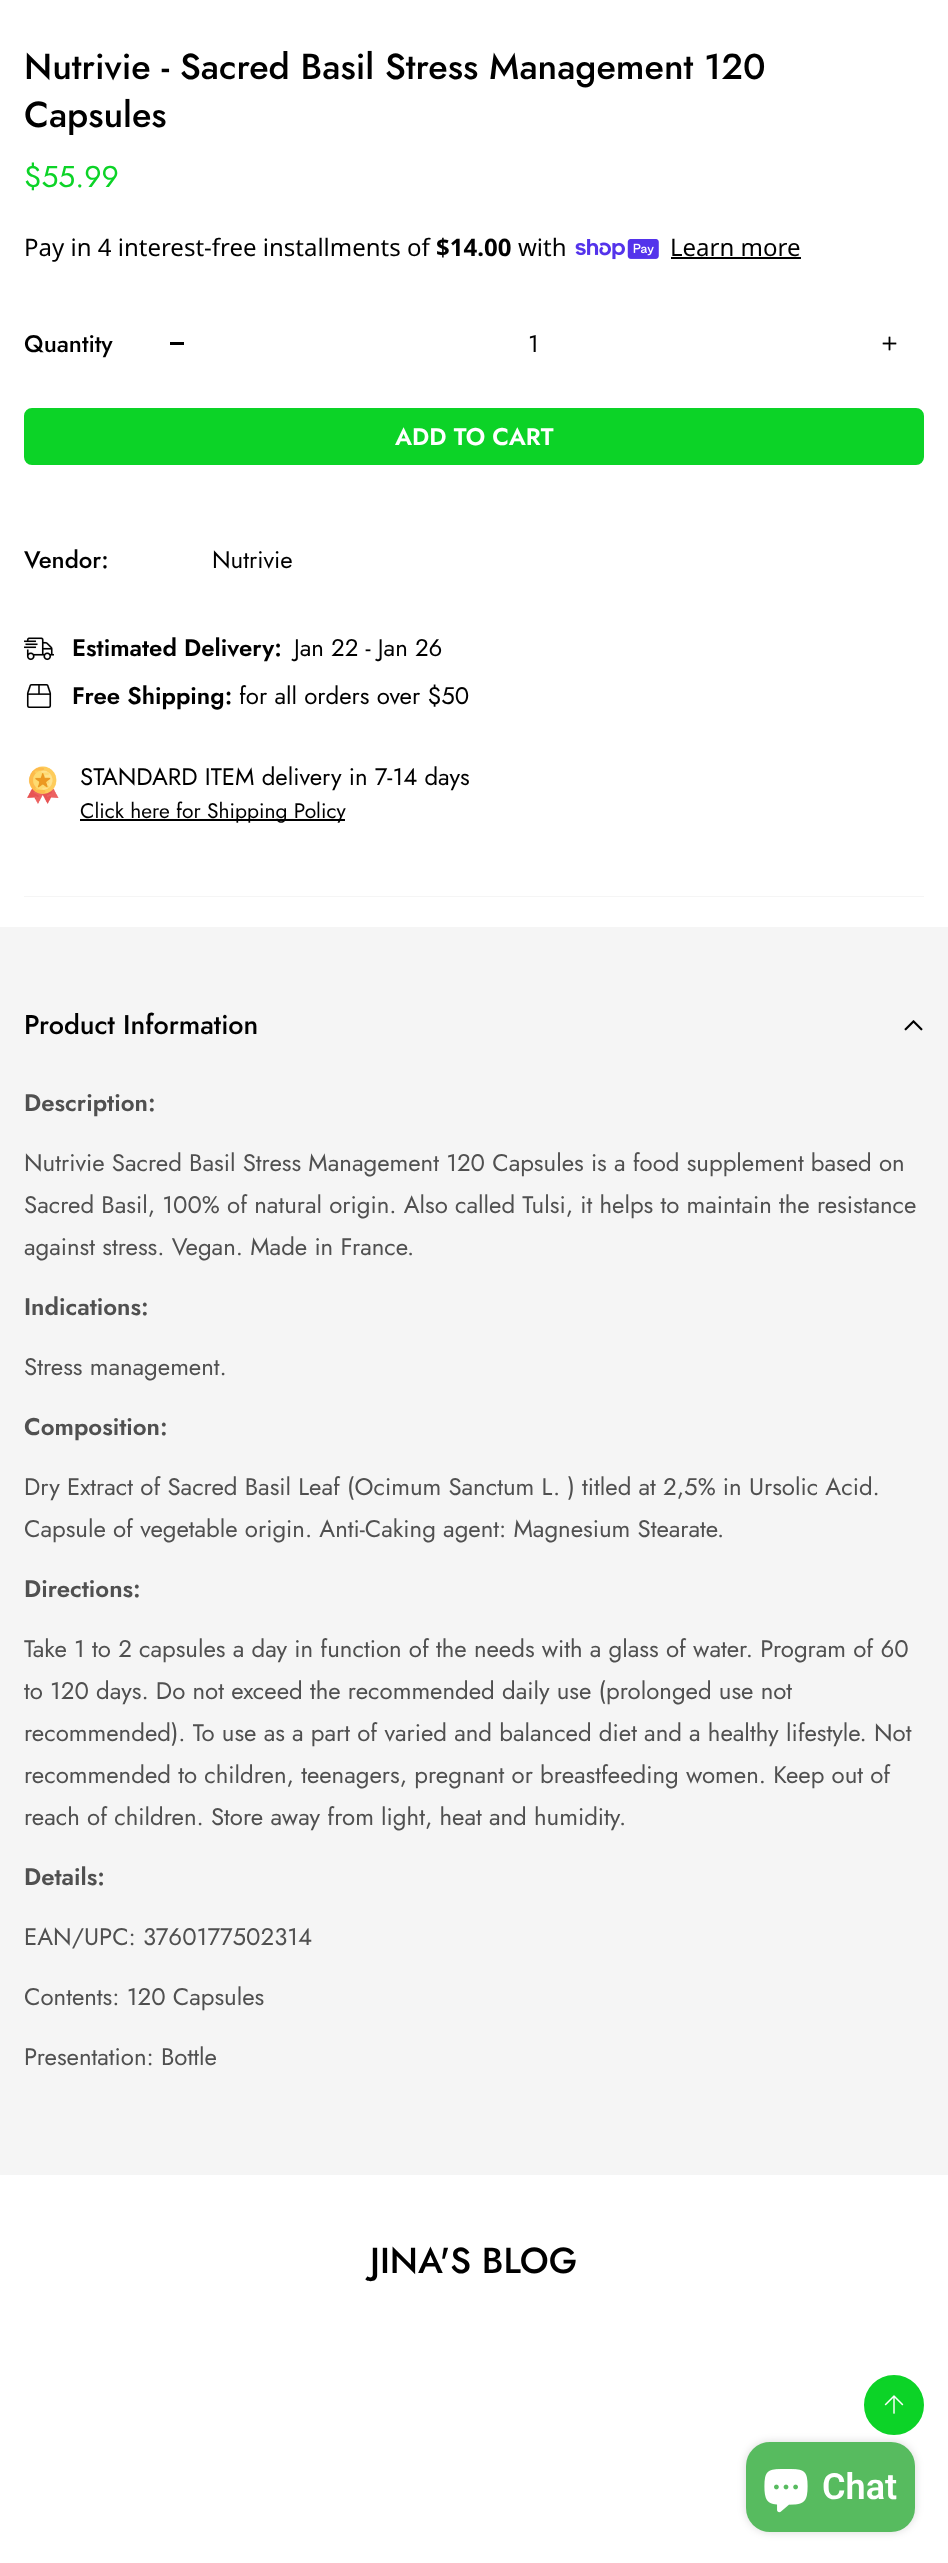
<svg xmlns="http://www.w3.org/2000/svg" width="948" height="2563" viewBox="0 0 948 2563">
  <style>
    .t1 { font: 500 36px Jost; fill: #000; }
    .t2 { font: 30px Jost; fill: #0cd327; }
    .t3 { font: 24px Noto Sans; fill: #000; }
    .t4 { font: bold 24px Noto Sans; fill: #000; }
    .t5 { font: 500 24px Jost; fill: #000; }
    .t6 { font: 24px Jost; fill: #000; }
    .t7 { font: 600 24px Jost; fill: #fff; }
    .t8 { font: 600 24px Jost; fill: #000; }
    .t9 { font: 21px Jost; fill: #000; }
    .t10 { font: 500 27px Jost; fill: #000; }
    .t11 { font: 600 24px Jost; fill: #505050; }
    .t12 { font: 24px Jost; fill: #505050; }
    .t13 { font: 600 36px Roboto; fill: #fff; }
  </style>
  <rect width="100%" height="100%" fill="#fff"/>
  <text x="24" y="79" class="t1">Nutrivie - Sacred Basil Stress Management 120</text>
  <text x="24" y="127" class="t1">Capsules</text>
  <text x="24" y="187" class="t2">$55.99</text>
  <text x="24" y="256" class="t3">Pay in 4 interest-free installments of</text>
  <text x="436" y="256" class="t4">$14.00</text>
  <text x="518" y="256" class="t3">with</text>
  <image x="575" y="239" width="84" height="21" href="images/1.png"/>
  <text x="670" y="256" class="t3">Learn more</text>
  <rect x="671" y="257" width="130" height="2" fill="#000"/>
  <text x="24" y="352" class="t5">Quantity</text>
  <rect x="170" y="342" width="14" height="3" fill="#000"/>
  <text x="528" y="352" class="t6">1</text>
  <image x="882" y="336" width="15" height="15" href="images/2.png"/>
  <rect x="25" y="409" width="898" height="55" rx="7" fill="#0cd327" stroke="#0cd327" stroke-width="2"/>
  <text x="395" y="445" class="t7">ADD TO CART</text>
  <text x="24" y="568" class="t5">Vendor:</text>
  <text x="212" y="568" class="t6">Nutrivie</text>
  <image x="24" y="637" width="30" height="24" href="images/3.png"/>
  <text x="72" y="656" class="t8">Estimated Delivery:</text>
  <text x="294" y="656" class="t6">Jan 22 - Jan 26</text>
  <image x="26" y="684" width="26" height="24" href="images/4.png"/>
  <text x="72" y="704" class="t8">Free Shipping:</text>
  <text x="239" y="704" class="t6">for all orders over $50</text>
  <image x="27" y="766" width="32" height="38" href="images/5.png"/>
  <text x="80" y="785" class="t6">STANDARD ITEM delivery in 7-14 days</text>
  <rect x="80" y="819" width="265" height="2" fill="#000"/>
  <text x="80" y="818" class="t9">Click here for Shipping Policy</text>
  <rect x="24" y="896" width="900" height="1" fill="#f5f5f5"/>
  <rect x="0" y="927" width="948" height="1248" fill="#f5f5f5"/>
  <text x="24" y="1034" class="t10">Product Information</text>
  <image x="904" y="1020" width="19" height="11" href="images/6.png"/>
  <text x="24" y="1111" class="t11">Description:</text>
  <text x="24" y="1171" class="t12">Nutrivie Sacred Basil Stress Management 120 Capsules is a food supplement based on</text>
  <text x="24" y="1213" class="t12">Sacred Basil, 100% of natural origin. Also called Tulsi, it helps to maintain the resistance</text>
  <text x="24" y="1255" class="t12">against stress. Vegan. Made in France.</text>
  <text x="24" y="1315" class="t11">Indications:</text>
  <text x="24" y="1375" class="t12">Stress management.</text>
  <text x="24" y="1435" class="t11">Composition:</text>
  <text x="24" y="1495" class="t12">Dry Extract of Sacred Basil Leaf (Ocimum Sanctum L. ) titled at 2,5% in Ursolic Acid.</text>
  <text x="24" y="1537" class="t12">Capsule of vegetable origin. Anti-Caking agent: Magnesium Stearate.</text>
  <text x="24" y="1597" class="t11">Directions:</text>
  <text x="24" y="1657" class="t12">Take 1 to 2 capsules a day in function of the needs with a glass of water. Program of 60</text>
  <text x="24" y="1699" class="t12">to 120 days. Do not exceed the recommended daily use (prolonged use not</text>
  <text x="24" y="1741" class="t12">recommended). To use as a part of varied and balanced diet and a healthy lifestyle. Not</text>
  <text x="24" y="1783" class="t12">recommended to children, teenagers, pregnant or breastfeeding women. Keep out of</text>
  <text x="24" y="1825" class="t12">reach of children. Store away from light, heat and humidity.</text>
  <text x="24" y="1885" class="t11">Details:</text>
  <text x="24" y="1945" class="t12">EAN/UPC: 3760177502314</text>
  <text x="24" y="2005" class="t12">Contents: 120 Capsules</text>
  <text x="24" y="2065" class="t12">Presentation: Bottle</text>
  <text x="370" y="2273" class="t1">JINA'S BLOG</text>
  <circle cx="894" cy="2405" r="29" fill="#0cd327" stroke="#0cd327" stroke-width="2"/>
  <image x="884" y="2395" width="20" height="19" href="images/7.png"/>
  <rect x="746" y="2442" width="169" height="90" rx="24" fill="#00000026" filter="blur(4px)"/>
  <rect x="746" y="2442" width="169" height="90" rx="24" fill="#57bb5f"/>
  <image x="764" y="2469" width="44" height="44" href="images/8.png"/>
  <text x="822" y="2499" class="t13">Chat</text>
</svg>
